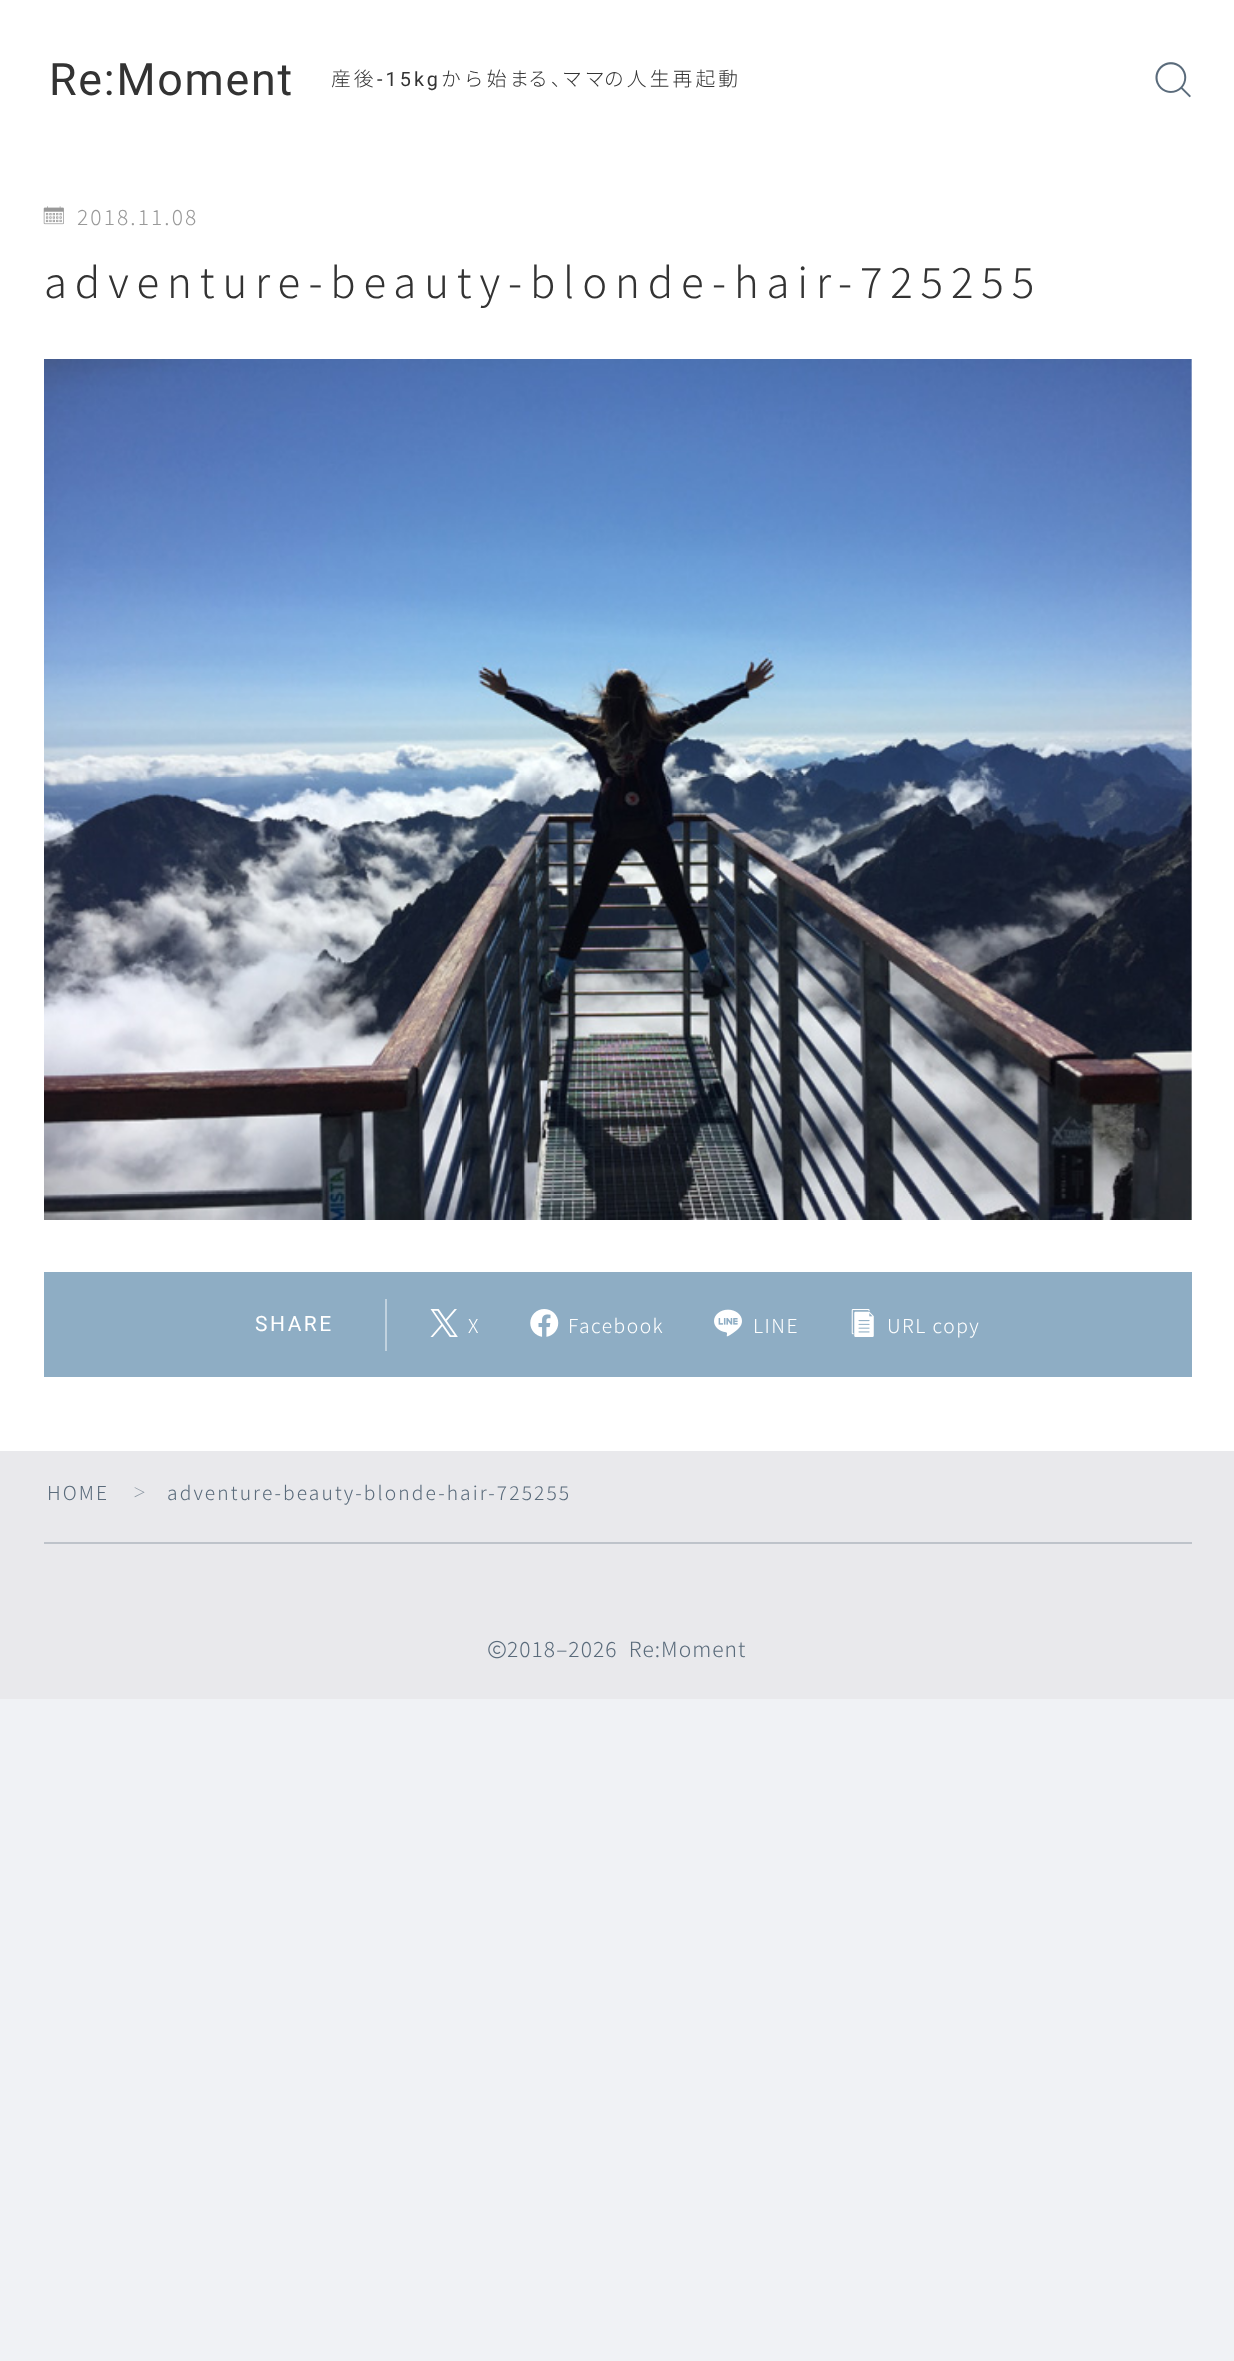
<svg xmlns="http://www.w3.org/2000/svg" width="1234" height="2361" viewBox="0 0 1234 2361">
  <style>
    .t1 { font: 44.75px Roboto; letter-spacing: 1.75px; fill: #333; }
    .t2 { font: 300 19.75px Noto Sans JP; letter-spacing: 3.1px; fill: #333; }
    .t3 { font: 19.75px Roboto; letter-spacing: 3.1px; fill: #333; }
    .t4 { font: 300 21px Noto Sans JP; letter-spacing: 2.1px; fill: #999; }
    .t5 { font: 300 42px Noto Sans JP; letter-spacing: 7.9px; fill: #333; }
    .t6 { font: 21px Roboto; letter-spacing: 2.5px; fill: #fff; }
    .t7 { font: 300 19.25px Noto Sans JP; letter-spacing: 1.5px; fill: #fff; }
    .t8 { font: 300 19.25px Noto Sans JP; letter-spacing: 2.1px; fill: #5a6b7b; }
    .t9 { font: 300 13px Noto Sans JP; letter-spacing: 1px; fill: #85919d; }
    .t10 { font: 300 21px Noto Sans JP; letter-spacing: 1.05px; fill: #5a6b7b; }
  </style>
  <rect width="100%" height="100%" fill="#f0f2f5"/>
  <rect x="0" y="0" width="1234" height="1451" fill="#fff"/>
  <text x="49" y="95" class="t1">Re:Moment</text>
  <text x="331" y="86" class="t2">産後</text>
  <text x="377" y="86" class="t3">-15kg</text>
  <text x="441" y="86" class="t2">から始ま</text>
  <text x="528" y="86" class="t2">る、</text>
  <text x="562" y="86" class="t2">ママ</text>
  <text x="604" y="86" class="t2">の人生再起動</text>
  <image x="1155" y="62" width="36" height="36" href="images/1.png"/>
  <image x="43" y="206" width="21" height="19" href="images/2.png"/>
  <text x="77" y="225" class="t4">2018.11.08</text>
  <text x="44" y="298" class="t5">adventure-beauty-blonde-hair-725255</text>
  <image x="44" y="359" width="1148" height="861" href="images/3.png"/>
  <rect x="44" y="1272" width="1148" height="105" fill="#8eadc4"/>
  <text x="255" y="1331" class="t6">SHARE</text>
  <rect x="385" y="1299" width="2" height="52" fill="#c1d2df"/>
  <image x="430" y="1309" width="28" height="28" href="images/4.png"/>
  <text x="468" y="1333" class="t7">X</text>
  <image x="530" y="1309" width="29" height="28" href="images/5.png"/>
  <text x="568" y="1333" class="t7">Facebook</text>
  <image x="714" y="1309" width="28" height="28" href="images/6.png"/>
  <text x="753" y="1333" class="t7">LINE</text>
  <image x="851" y="1309" width="23" height="28" href="images/7.png"/>
  <text x="887" y="1333" class="t7">URL copy</text>
  <rect x="0" y="1451" width="1234" height="248" fill="#e9e9ec"/>
  <text x="47" y="1500" class="t8">HOME</text>
  <text x="133" y="1497" class="t9">＞</text>
  <text x="167" y="1500" class="t8">adventure-beauty-blonde-hair-725255</text>
  <rect x="44" y="1542" width="1148" height="2" fill="#bec3ca"/>
  <image x="488" y="1640" width="18" height="19" href="images/8.png"/>
  <text x="507" y="1657" class="t10" xml:space="preserve">2018–2026  Re:Moment</text>
</svg>
